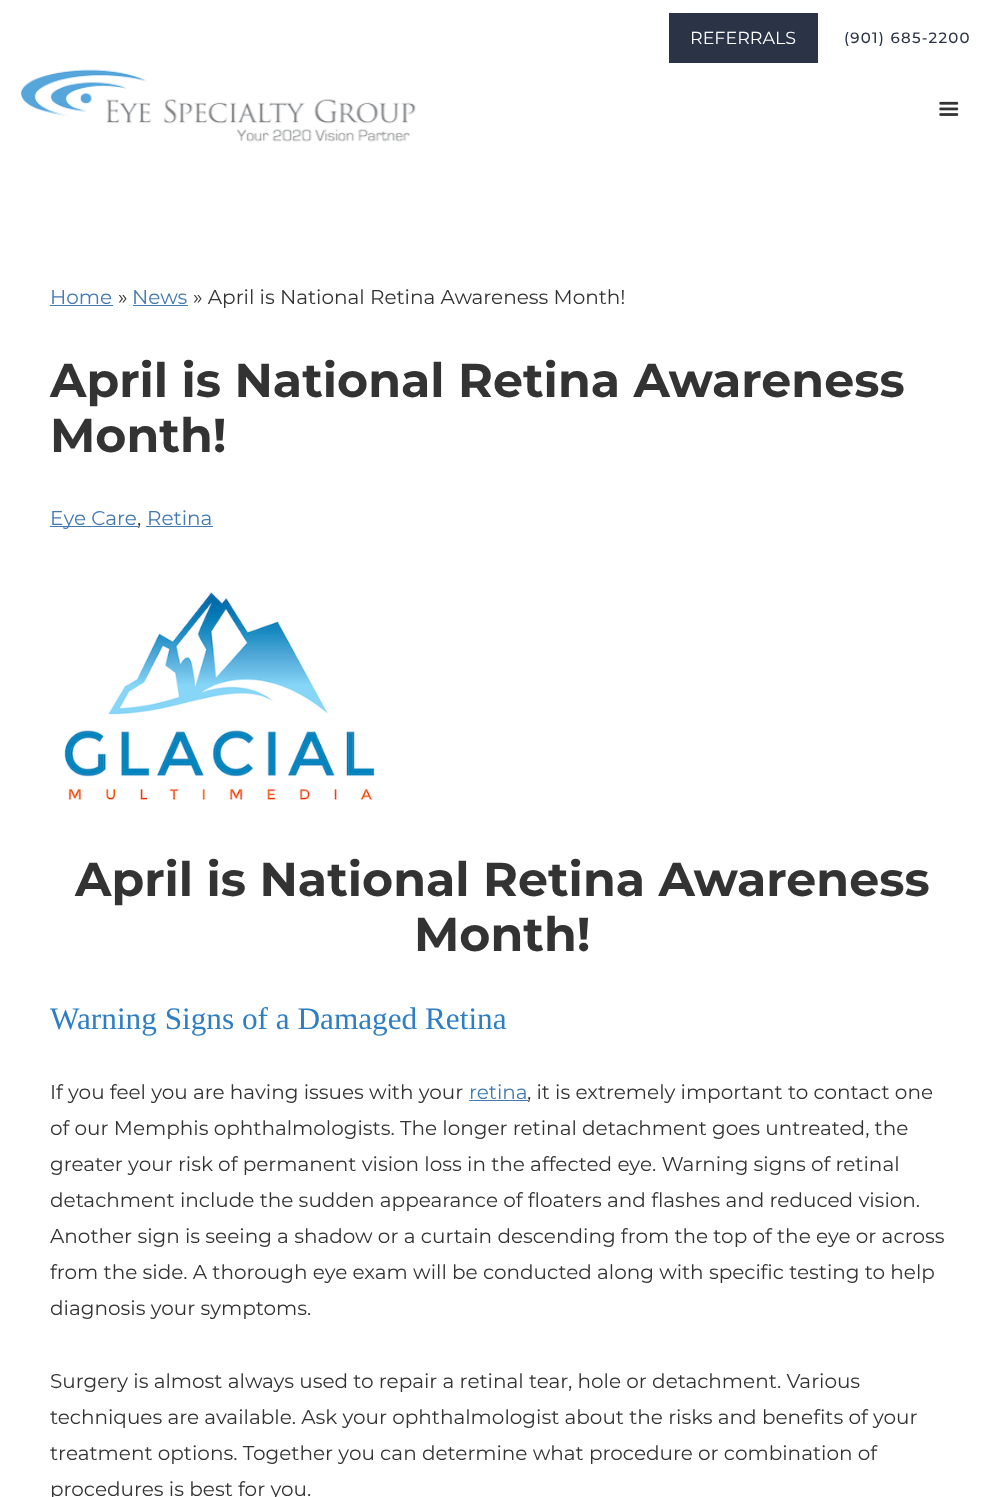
<svg xmlns="http://www.w3.org/2000/svg" width="1004" height="1497" viewBox="0 0 1004 1497">
  <style>
    .t1 { font: 17.5px Montserrat; fill: #fff; }
    .t2 { font: 500 15px Montserrat; letter-spacing: 1.25px; fill: #2b3346; }
    .t3 { font: 20px Montserrat; fill: #437ab2; }
    .t4 { font: 20px Montserrat; fill: #333; }
    .t5 { font: bold 47.5px Montserrat; fill: #333; }
    .t6 { font: 31.25px Liberation Serif; fill: #2e7ec4; }
  </style>
  <rect width="100%" height="100%" fill="#fff"/>
  <rect x="669" y="13" width="149" height="50" fill="#2b3346"/>
  <text x="690" y="44" class="t1">REFERRALS</text>
  <text x="844" y="43" class="t2">(901) 685-2200</text>
  <image x="20" y="69" width="396" height="73" href="images/1.png"/>
  <image x="939" y="101" width="20" height="15" href="images/2.png"/>
  <text x="50" y="304" class="t3">Home</text>
  <rect x="50" y="305" width="63" height="1" fill="#437ab2"/>
  <text x="118" y="304" class="t4">»</text>
  <text x="132" y="304" class="t3">News</text>
  <rect x="133" y="305" width="55" height="1" fill="#437ab2"/>
  <text x="193" y="304" class="t4">» April is National Retina Awareness Month!</text>
  <text x="50" y="397" class="t5">April is National Retina Awareness</text>
  <text x="50" y="452" class="t5">Month!</text>
  <rect x="50" y="526" width="88" height="1" fill="#437ab2"/>
  <text x="50" y="525" class="t3">Eye Care</text>
  <text x="137" y="525" class="t4">,</text>
  <text x="147" y="525" class="t3">Retina</text>
  <rect x="146" y="526" width="67" height="1" fill="#437ab2"/>
  <image x="64" y="592" width="311" height="208" href="images/3.png"/>
  <text x="75" y="896" class="t5">April is National Retina Awareness</text>
  <text x="414" y="951" class="t5">Month!</text>
  <text x="50" y="1029" class="t6">Warning Signs of a Damaged Retina</text>
  <text x="50" y="1099" class="t4">If you feel you are having issues with your</text>
  <text x="469" y="1099" class="t3">retina</text>
  <rect x="469" y="1100" width="59" height="1" fill="#437ab2"/>
  <text x="527" y="1099" class="t4">, it is extremely important to contact one</text>
  <text x="50" y="1135" class="t4">of our Memphis ophthalmologists. The longer retinal detachment goes untreated, the</text>
  <text x="50" y="1171" class="t4">greater your risk of permanent vision loss in the affected eye. Warning signs of retinal</text>
  <text x="50" y="1207" class="t4">detachment include the sudden appearance of floaters and flashes and reduced vision.</text>
  <text x="50" y="1243" class="t4">Another sign is seeing a shadow or a curtain descending from the top of the eye or across</text>
  <text x="50" y="1279" class="t4">from the side. A thorough eye exam will be conducted along with specific testing to help</text>
  <text x="50" y="1315" class="t4">diagnosis your symptoms.</text>
  <text x="50" y="1388" class="t4">Surgery is almost always used to repair a retinal tear, hole or detachment. Various</text>
  <text x="50" y="1424" class="t4">techniques are available. Ask your ophthalmologist about the risks and benefits of your</text>
  <text x="50" y="1460" class="t4">treatment options. Together you can determine what procedure or combination of</text>
  <text x="50" y="1496" class="t4">procedures is best for you.</text>
</svg>
